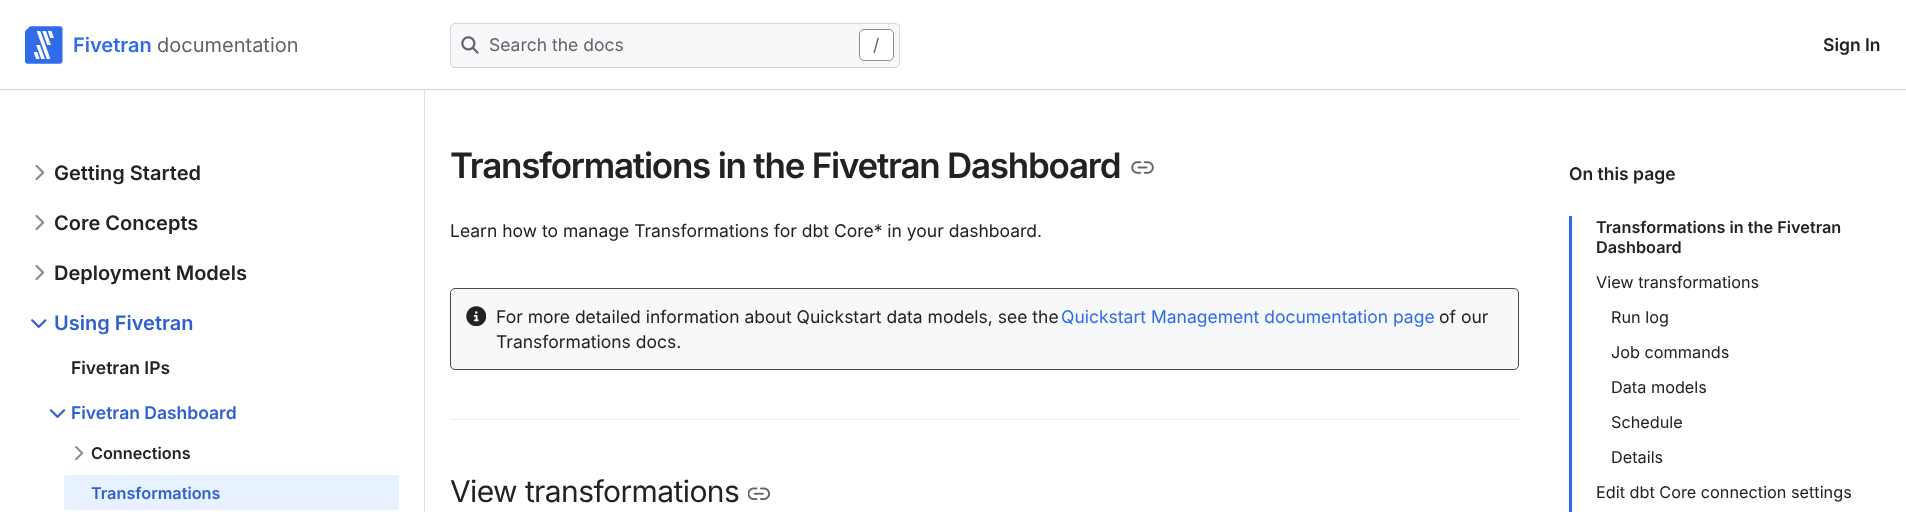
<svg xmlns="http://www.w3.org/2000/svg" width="1906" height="512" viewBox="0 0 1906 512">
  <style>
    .t1 { font: 600 20px Inter; fill: #306bea; }
    .t2 { font: 20px Inter; fill: #626366; }
    .t3 { font: 17.5px Inter; fill: #626366; }
    .t4 { font: 600 17.5px Inter; fill: #222; }
    .t5 { font: 600 20px Inter; fill: #222; }
    .t6 { font: 600 20px Inter; fill: #2e60cf; }
    .t7 { font: 600 17.5px Inter; fill: #2e60cf; }
    .t8 { font: 600 16.25px Inter; fill: #222; }
    .t9 { font: 600 16.25px Inter; fill: #2e60cf; }
    .t10 { font: 600 35px Inter; letter-spacing: -1.25px; fill: #222; }
    .t11 { font: 17.5px Inter; fill: #222; }
    .t12 { font: 17.5px Inter; fill: #306bea; }
    .t13 { font: 30px Inter; letter-spacing: -0.6px; fill: #222; }
    .t14 { font: 16.25px Inter; fill: #222; }
  </style>
  <rect width="100%" height="100%" fill="#fff"/>
  <rect x="0" y="89" width="1906" height="1" fill="#d0d3d9"/>
  <image x="25" y="26" width="38" height="38" href="images/1.png"/>
  <text x="73" y="52" class="t1">Fivetran</text>
  <text x="157" y="52" class="t2">documentation</text>
  <rect x="450.5" y="23.5" width="449" height="44" rx="4.5" fill="#f7f8fa" stroke="#d0d3d9"/>
  <image x="461" y="36" width="18" height="18" href="images/2.png"/>
  <text x="489" y="51" class="t3">Search the docs</text>
  <rect x="859.5" y="29.5" width="34" height="31" rx="4.5" fill="#fff" stroke="#8a8c8f"/>
  <text x="873" y="51" class="t3">/</text>
  <text x="1823" y="51" class="t4">Sign In</text>
  <rect x="424" y="90" width="1" height="422" fill="#dfe1e5"/>
  <image x="35" y="164" width="10" height="17" href="images/3.png"/>
  <text x="54" y="180" class="t5">Getting Started</text>
  <image x="35" y="214" width="10" height="17" href="images/3.png"/>
  <text x="54" y="230" class="t5">Core Concepts</text>
  <image x="35" y="264" width="10" height="17" href="images/3.png"/>
  <text x="54" y="280" class="t5">Deployment Models</text>
  <image x="31" y="319" width="16" height="9" href="images/4.png"/>
  <text x="54" y="330" class="t6">Using Fivetran</text>
  <text x="71" y="374" class="t4">Fivetran IPs</text>
  <image x="49" y="409" width="17" height="9" href="images/5.png"/>
  <text x="71" y="419" class="t7">Fivetran Dashboard</text>
  <image x="75" y="446" width="9" height="15" href="images/6.png"/>
  <text x="91" y="459" class="t8">Connections</text>
  <rect x="64" y="475" width="335" height="35" rx="2.5" fill="#e8f1ff"/>
  <text x="91" y="499" class="t9">Transformations</text>
  <text x="450" y="178" class="t10">Transformations in the Fivetran Dashboard</text>
  <image x="1131" y="161" width="23" height="13" href="images/7.png"/>
  <text x="450" y="237" class="t11">Learn how to manage Transformations for dbt Core* in your dashboard.</text>
  <rect x="450.5" y="288.5" width="1068" height="81" rx="4.5" fill="#f7f8fa" stroke="#494a4c"/>
  <image x="466" y="306" width="20" height="20" href="images/8.png"/>
  <text x="496" y="323" class="t11">For more detailed information about Quickstart data models, see the</text>
  <text x="1061" y="323" class="t12">Quickstart Management documentation page</text>
  <text x="1439" y="323" class="t11">of our</text>
  <text x="496" y="348" class="t11">Transformations docs.</text>
  <rect x="450" y="419" width="1069" height="1" fill="#eee"/>
  <text x="450" y="502" class="t13">View transformations</text>
  <image x="748" y="487" width="22" height="13" href="images/9.png"/>
  <text x="1569" y="180" class="t4">On this page</text>
  <rect x="1569" y="216" width="3" height="296" fill="#306bea"/>
  <text x="1596" y="233" class="t8">Transformations in the Fivetran</text>
  <text x="1596" y="253" class="t8">Dashboard</text>
  <text x="1596" y="288" class="t14">View transformations</text>
  <text x="1611" y="323" class="t14">Run log</text>
  <text x="1611" y="358" class="t14">Job commands</text>
  <text x="1611" y="393" class="t14">Data models</text>
  <text x="1611" y="428" class="t14">Schedule</text>
  <text x="1611" y="463" class="t14">Details</text>
  <text x="1596" y="498" class="t14">Edit dbt Core connection settings</text>
</svg>
